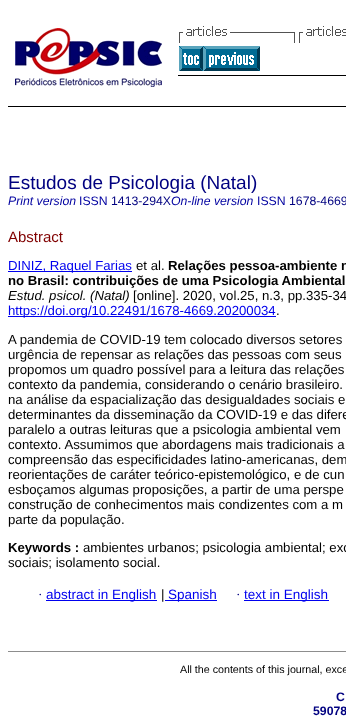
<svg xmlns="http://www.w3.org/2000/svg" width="346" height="727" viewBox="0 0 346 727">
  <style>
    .t1 { font: 19px Liberation Sans; fill: #000080; }
    .t2 { font: italic 12.25px Liberation Sans; fill: #0000a0; }
    .t3 { font: 12.25px Liberation Sans; fill: #0000a0; }
    .t4 { font: 12.25px Liberation Sans; fill: #000080; }
    .t5 { font: 15px Liberation Sans; fill: #800000; }
    .t6 { font: 13.2px Liberation Sans; fill: #00e; }
    .t7 { font: 13.2px Liberation Sans; fill: #000; }
    .t8 { font: bold 13.2px Liberation Sans; fill: #000; }
    .t9 { font: italic 13.2px Liberation Sans; fill: #000; }
    .t10 { font: 13.5px Liberation Serif; fill: #000080; }
    .t11 { font: 13.5px Liberation Sans; fill: #00e; }
    .t12 { font: 13.5px Liberation Sans; fill: #000; }
    .t13 { font: 10.7px Liberation Sans; fill: #000; }
    .t14 { font: bold 12.25px Liberation Sans; fill: #000080; }
  </style>
  <rect width="100%" height="100%" fill="#fff"/>
  <rect x="8" y="106" width="338" height="1" fill="#000"/>
  <image x="15" y="28" width="147" height="59" href="images/1.png"/>
  <rect x="178" y="75" width="168" height="1" fill="#000"/>
  <image x="179" y="26" width="116" height="17" href="images/2.png"/>
  <image x="299" y="26" width="47" height="17" href="images/3.png"/>
  <image x="179" y="46" width="24" height="25" href="images/4.png"/>
  <image x="203" y="46" width="57" height="25" href="images/5.png"/>
  <rect x="8" y="651" width="338" height="1" fill="#8d8d8d"/>
  <text x="8" y="189" class="t1">Estudos de Psicologia (Natal)</text>
  <text x="8" y="205" class="t2">Print version</text>
  <text x="79" y="205" class="t3">ISSN</text>
  <text x="111" y="205" class="t4">1413-294X</text>
  <text x="171" y="205" class="t2">On-line version</text>
  <text x="257" y="205" class="t3">ISSN</text>
  <text x="289" y="205" class="t4">1678-4669</text>
  <text x="8" y="242" class="t5">Abstract</text>
  <rect x="8" y="271" width="124" height="1" fill="#00e"/>
  <text x="8" y="270" class="t6">DINIZ, Raquel Farias</text>
  <text x="136" y="270" class="t7">et al.</text>
  <text x="168" y="270" class="t8">Relações pessoa-ambiente n</text>
  <text x="8" y="285" class="t8">no Brasil: contribuições de uma Psicologia Ambiental</text>
  <text x="8" y="300" class="t9">Estud. psicol. (Natal)</text>
  <text x="133" y="300" class="t7">[online]. 2020, vol.25, n.3, pp.335-34</text>
  <rect x="8" y="316" width="268" height="1" fill="#00e"/>
  <text x="8" y="315" class="t6">https://doi.org/10.22491/1678-4669.20200034</text>
  <text x="276" y="315" class="t7">.</text>
  <text x="8" y="344" class="t7">A pandemia de COVID-19 tem colocado diversos setores</text>
  <text x="8" y="359" class="t7">urgência de repensar as relações das pessoas com seus</text>
  <text x="8" y="374" class="t7">propomos um quadro possível para a leitura das relações</text>
  <text x="8" y="389" class="t7">contexto da pandemia, considerando o cenário brasileiro.</text>
  <text x="8" y="404" class="t7">na análise da espacialização das desigualdades sociais e</text>
  <text x="8" y="419" class="t7">determinantes da disseminação da COVID-19 e das difere</text>
  <text x="8" y="434" class="t7">paralelo a outras leituras que a psicologia ambiental vem</text>
  <text x="8" y="449" class="t7">contexto. Assumimos que abordagens mais tradicionais a</text>
  <text x="8" y="464" class="t7">compreensão das especificidades latino-americanas, dem</text>
  <text x="8" y="479" class="t7">reorientações de caráter teórico-epistemológico, e de cun</text>
  <text x="8" y="494" class="t7">esboçamos algumas proposições, a partir de uma perspe</text>
  <text x="8" y="509" class="t7">construção de conhecimentos mais condizentes com a m</text>
  <text x="8" y="524" class="t7">parte da população.</text>
  <text x="8" y="552" class="t8">Keywords :</text>
  <text x="83" y="552" class="t7">ambientes urbanos; psicologia ambiental; exc</text>
  <text x="8" y="567" class="t7">sociais; isolamento social.</text>
  <text x="38" y="599" class="t10">·</text>
  <rect x="46" y="600" width="111" height="1" fill="#00e"/>
  <text x="46" y="599" class="t11">abstract in English</text>
  <text x="161" y="599" class="t12">|</text>
  <rect x="165" y="600" width="52" height="1" fill="#00e"/>
  <text x="168" y="599" class="t11">Spanish</text>
  <text x="236" y="599" class="t10">·</text>
  <rect x="244" y="600" width="85" height="1" fill="#00e"/>
  <text x="244" y="599" class="t11">text in English</text>
  <text x="180" y="673" class="t13">All the contents of this journal, exce</text>
  <text x="336" y="701" class="t14">C</text>
  <text x="313" y="715" class="t14">59078</text>
</svg>
